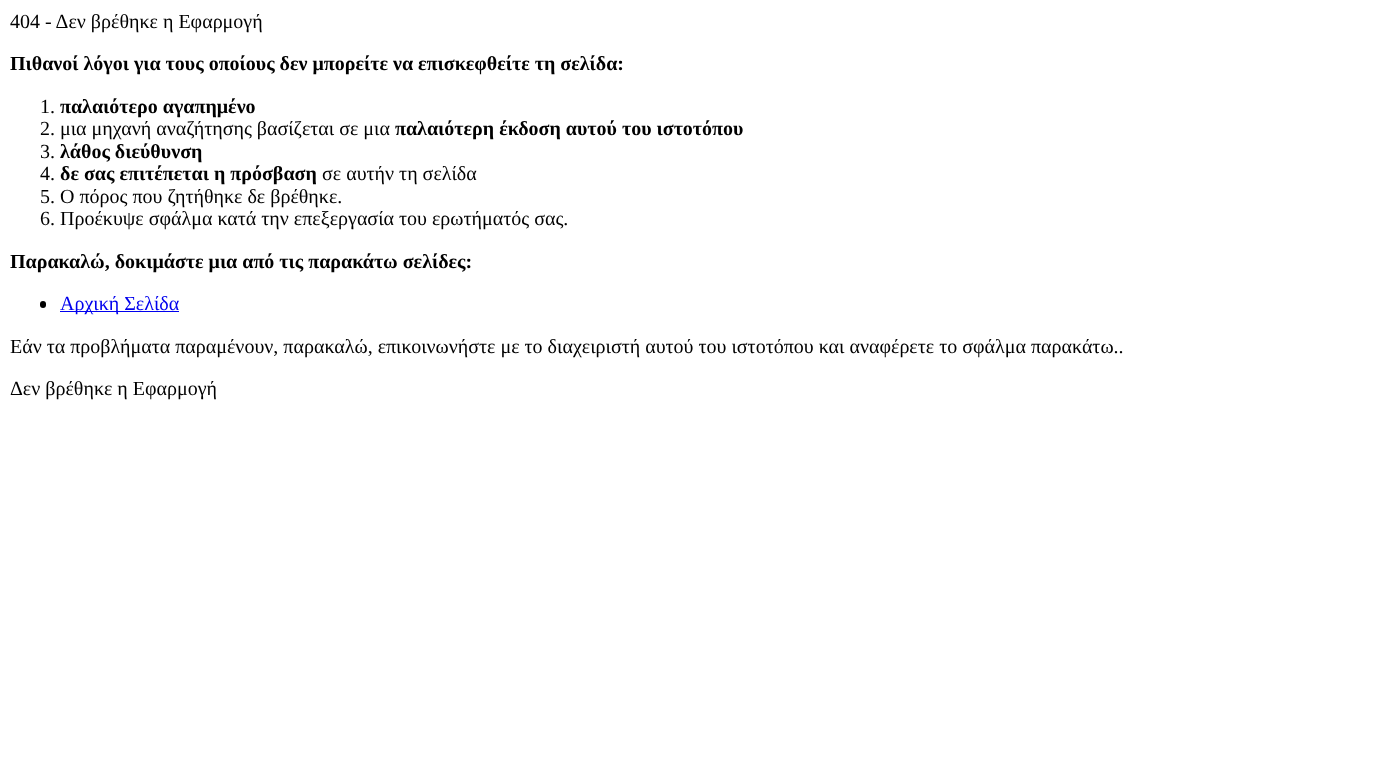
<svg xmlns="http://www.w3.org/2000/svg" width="1380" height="767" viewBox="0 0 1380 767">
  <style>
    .t1 { font: 20px Liberation Serif; fill: #000; }
    .t2 { font: bold 20px Liberation Serif; fill: #000; }
    .t3 { font: 20px Liberation Serif; fill: #00e; }
  </style>
  <rect width="100%" height="100%" fill="#fff"/>
  <text x="10" y="28" class="t1">404 - Δεν βρέθηκε η Εφαρμογή</text>
  <text x="10" y="70" class="t2">Πιθανοί λόγοι για τους οποίους δεν μπορείτε να επισκεφθείτε τη σελίδα:</text>
  <text x="40" y="113" class="t1">1.</text>
  <text x="60" y="113" class="t2">παλαιότερο αγαπημένο</text>
  <text x="40" y="135" class="t1">2. μια μηχανή αναζήτησης βασίζεται σε μια</text>
  <text x="395" y="135" class="t2">παλαιότερη έκδοση αυτού του ιστοτόπου</text>
  <text x="40" y="158" class="t1">3.</text>
  <text x="60" y="158" class="t2">λάθος διεύθυνση</text>
  <text x="40" y="180" class="t1">4.</text>
  <text x="60" y="180" class="t2">δε σας επιτέπεται η πρόσβαση</text>
  <text x="322" y="180" class="t1">σε αυτήν τη σελίδα</text>
  <text x="40" y="203" class="t1">5. Ο πόρος που ζητήθηκε δε βρέθηκε.</text>
  <text x="40" y="225" class="t1">6. Προέκυψε σφάλμα κατά την επεξεργασία του ερωτήματός σας.</text>
  <text x="10" y="268" class="t2">Παρακαλώ, δοκιμάστε μια από τις παρακάτω σελίδες:</text>
  <rect x="40" y="301" width="6" height="7" rx="3" fill="#000"/>
  <rect x="60" y="311" width="119" height="1" fill="#00e"/>
  <text x="60" y="310" class="t3">Αρχική Σελίδα</text>
  <text x="10" y="353" class="t1">Εάν τα προβλήματα παραμένουν, παρακαλώ, επικοινωνήστε με το διαχειριστή αυτού του ιστοτόπου και αναφέρετε το σφάλμα παρακάτω..</text>
  <text x="10" y="395" class="t1">Δεν βρέθηκε η Εφαρμογή</text>
</svg>
